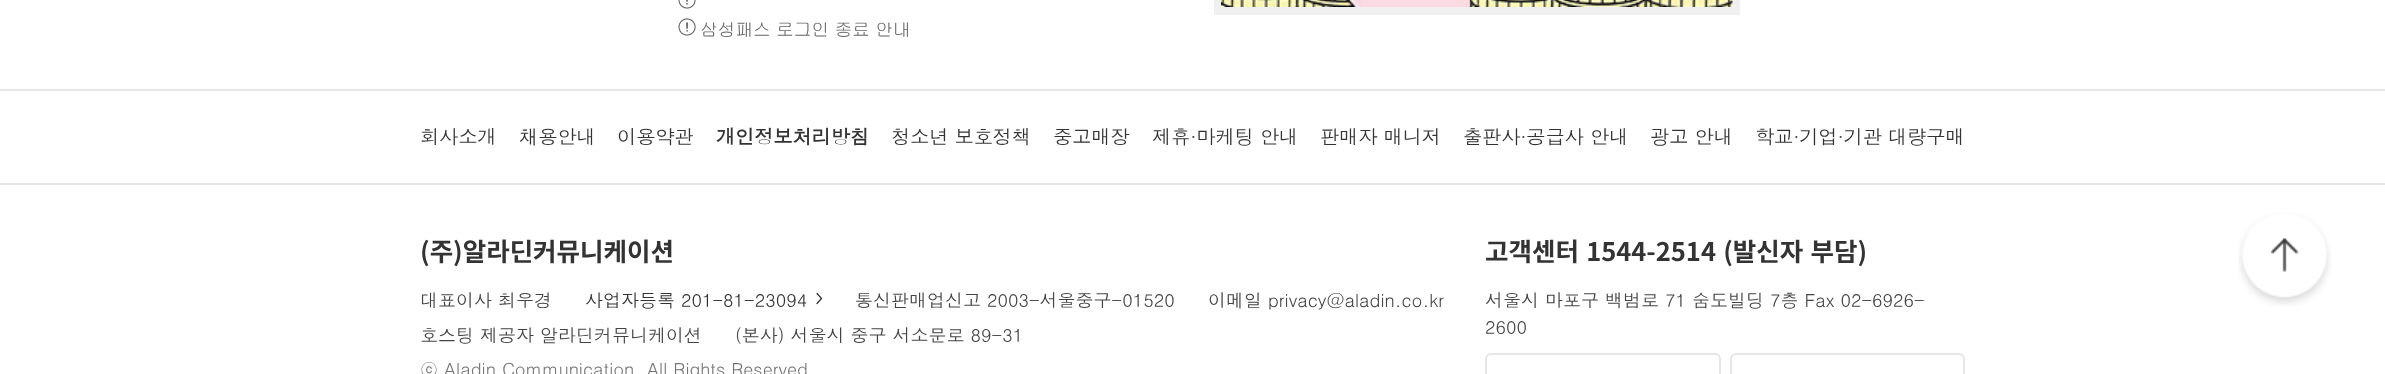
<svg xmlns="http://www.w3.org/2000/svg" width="2385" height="374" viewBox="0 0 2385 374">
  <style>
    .t1 { font: 18px Gulim; letter-spacing: -0.4px; fill: #666; }
    .t2 { font: 19.5px Dotum; letter-spacing: -0.4px; fill: #333; }
    .t3 { font: bold 19.5px Dotum; letter-spacing: -0.4px; fill: #333; }
    .t4 { font: bold 25.5px Noto Sans KR; fill: #333; }
    .t5 { font: 18px Dotum; fill: #444; }
    .t6 { font: 18px Dotum; fill: #333; }
    .t7 { font: 18px Dotum; fill: #737373; }
  </style>
  <rect width="100%" height="100%" fill="#fff"/>
  <rect x="1218" y="-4" width="518" height="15" fill="none" stroke="#f0f0f0" stroke-width="8"/>
  <image x="1221" y="0" width="512" height="7" href="images/1.png"/>
  <image x="678" y="0" width="18" height="9" href="images/2.png"/>
  <image x="678" y="18" width="18" height="18" href="images/3.png"/>
  <text x="700" y="36" class="t1">삼성패스 로그인 종료 안내</text>
  <rect x="0" y="89" width="2385" height="2" fill="#e6e6e6"/>
  <rect x="0" y="183" width="2385" height="2" fill="#e6e6e6"/>
  <text x="420" y="144" class="t2">회사소개</text>
  <text x="519" y="144" class="t2">채용안내</text>
  <text x="617" y="144" class="t2">이용약관</text>
  <text x="716" y="144" class="t3">개인정보처리방침</text>
  <text x="891" y="144" class="t2">청소년 보호정책</text>
  <text x="1053" y="144" class="t2">중고매장</text>
  <text x="1152" y="144" class="t2">제휴·마케팅 안내</text>
  <text x="1320" y="144" class="t2">판매자 매니저</text>
  <text x="1463" y="144" class="t2">출판사·공급사 안내</text>
  <text x="1650" y="144" class="t2">광고 안내</text>
  <text x="1755" y="144" class="t2">학교·기업·기관 대량구매</text>
  <text x="420" y="261" class="t4">(주)알라딘커뮤니케이션</text>
  <text x="420" y="307" class="t5">대표이사 최우경</text>
  <text x="585" y="307" class="t6">사업자등록 201-81-23094</text>
  <path d="M817 293.5L821.5 298.5L817 303.5" fill="none" stroke="#323232" stroke-width="1.2" stroke-linecap="round" stroke-linejoin="round"/>
  <text x="855" y="307" class="t5">통신판매업신고 2003-서울중구-01520</text>
  <text x="1208" y="307" class="t5">이메일 privacy@aladin.co.kr</text>
  <text x="420" y="342" class="t5">호스팅 제공자 알라딘커뮤니케이션</text>
  <text x="735" y="342" class="t5">(본사) 서울시 중구 서소문로 89-31</text>
  <text x="420" y="376" class="t7">ⓒ Aladin Communication. All Rights Reserved</text>
  <text x="1485" y="261" word-spacing="1.5" class="t4">고객센터 1544-2514 (발신자 부담)</text>
  <text x="1485" y="307" class="t5">서울시 마포구 백범로 71 숨도빌딩 7층 Fax 02-6926-</text>
  <text x="1485" y="334" class="t5">2600</text>
  <rect x="1486" y="354" width="234" height="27" rx="5" fill="none" stroke="#e6e6e6" stroke-width="2"/>
  <rect x="1731" y="354" width="233" height="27" rx="5" fill="none" stroke="#e6e6e6" stroke-width="2"/>
  <image x="2238" y="212" width="93" height="94" href="images/4.png"/>
</svg>
